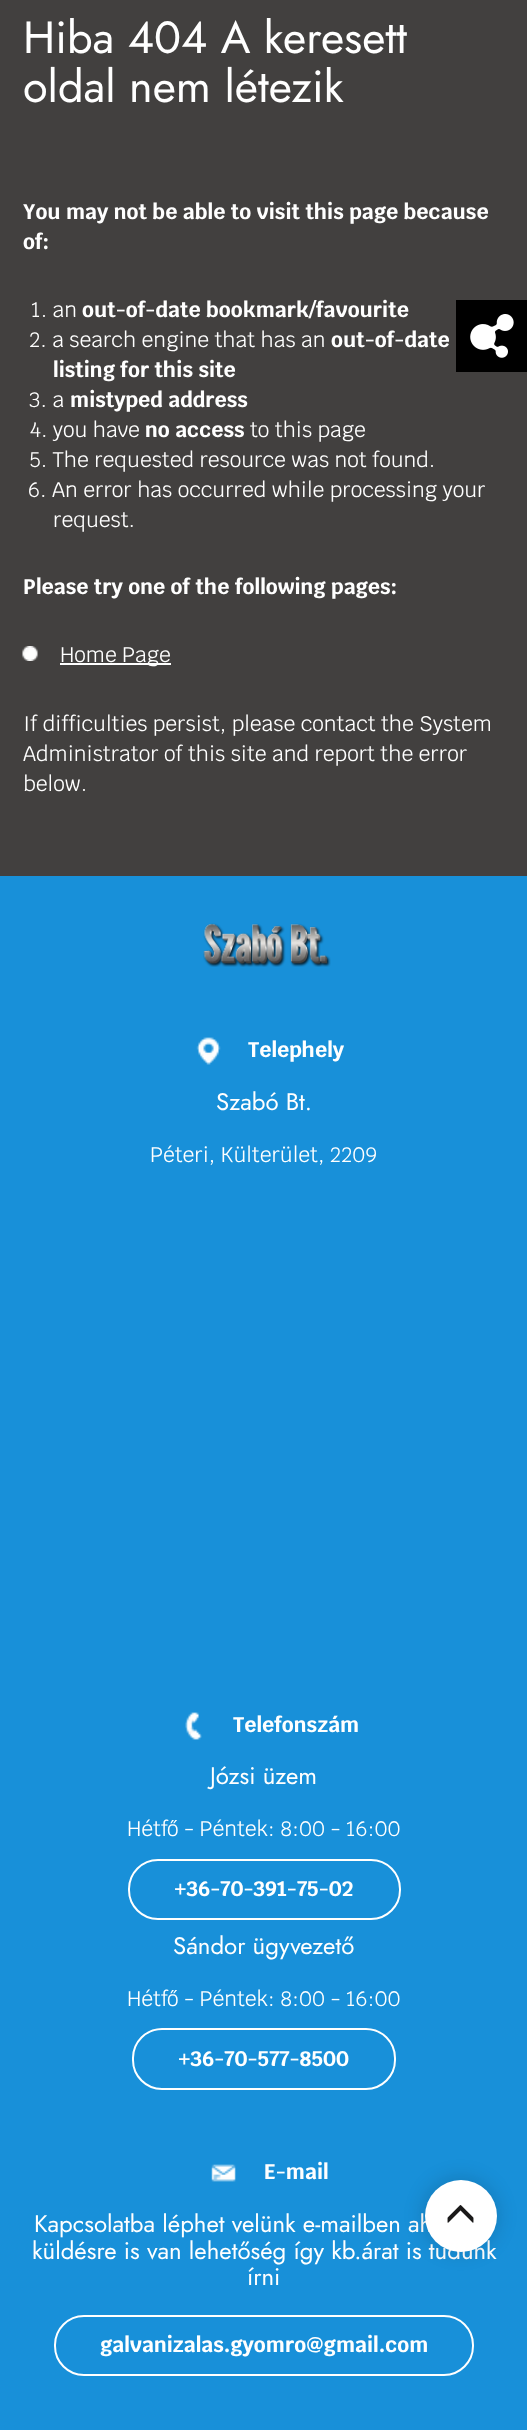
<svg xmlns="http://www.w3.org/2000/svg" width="527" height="2430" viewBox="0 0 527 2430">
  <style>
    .t1 { font: 45px Jost; fill: #fff; }
    .t2 { font: bold 21px Krub; fill: #fff; }
    .t3 { font: 21px Krub; fill: #fff; }
    .t4 { font: 24px Jost; fill: #fff; }
  </style>
  <rect width="100%" height="100%" fill="#42403f"/>
  <text x="23" y="53" class="t1">Hiba 404 A keresett</text>
  <text x="23" y="102" class="t1">oldal nem létezik</text>
  <text x="23" y="219" class="t2">You may not be able to visit this page because</text>
  <text x="23" y="249" class="t2">of:</text>
  <text x="31" y="317" class="t3">1. an</text>
  <text x="82" y="317" class="t2">out-of-date bookmark/favourite</text>
  <text x="29" y="347" class="t3">2. a search engine that has an</text>
  <text x="331" y="347" class="t2">out-of-date</text>
  <text x="53" y="377" class="t2">listing for this site</text>
  <text x="29" y="407" class="t3">3. a</text>
  <text x="70" y="407" class="t2">mistyped address</text>
  <text x="30" y="437" class="t3">4. you have</text>
  <text x="145" y="437" class="t2">no access</text>
  <text x="250" y="437" class="t3">to this page</text>
  <text x="29" y="467" class="t3">5. The requested resource was not found.</text>
  <text x="28" y="497" class="t3">6. An error has occurred while processing your</text>
  <text x="53" y="527" class="t3">request.</text>
  <text x="23" y="594" class="t2">Please try one of the following pages:</text>
  <image x="22" y="646" width="16" height="15" href="images/1.png"/>
  <rect x="60" y="663" width="111" height="2" fill="#fff"/>
  <text x="60" y="662" class="t3">Home Page</text>
  <text x="23" y="731" class="t3">If difficulties persist, please contact the System</text>
  <text x="23" y="761" class="t3">Administrator of this site and report the error</text>
  <text x="23" y="791" class="t3">below.</text>
  <rect x="456" y="300" width="71" height="72" fill="#000"/>
  <image x="470" y="314" width="44" height="44" href="images/2.png"/>
  <rect x="0" y="876" width="527" height="1554" fill="#1890d9"/>
  <image x="203" y="923" width="128" height="44" href="images/3.png"/>
  <image x="196" y="1037" width="25" height="28" href="images/4.png"/>
  <text x="248" y="1057" class="t2">Telephely</text>
  <text x="216" y="1110" class="t4">Szabó Bt.</text>
  <text x="150" y="1162" class="t3">Péteri, Külterület, 2209</text>
  <image x="185" y="1712" width="17" height="28" href="images/5.png"/>
  <text x="233" y="1732" class="t2">Telefonszám</text>
  <text x="210" y="1784" class="t4">Józsi üzem</text>
  <text x="127" y="1836" class="t3">Hétfő - Péntek: 8:00 - 16:00</text>
  <rect x="129" y="1860" width="271" height="59" rx="29" fill="none" stroke="#fff" stroke-width="2"/>
  <text x="174" y="1896" class="t2">+36-70-391-75-02</text>
  <text x="173" y="1954" class="t4">Sándor ügyvezető</text>
  <text x="127" y="2006" class="t3">Hétfő - Péntek: 8:00 - 16:00</text>
  <rect x="133" y="2029" width="262" height="60" rx="29" fill="none" stroke="#fff" stroke-width="2"/>
  <text x="178" y="2066" class="t2">+36-70-577-8500</text>
  <image x="211" y="2164" width="25" height="18" href="images/6.png"/>
  <text x="264" y="2179" class="t2">E-mail</text>
  <text x="34" y="2232" class="t4">Kapcsolatba léphet velünk e-mailben ah</text>
  <text x="32" y="2259" class="t4">küldésre is van lehetőség így kb.árat is tudunk</text>
  <text x="247" y="2285" class="t4">írni</text>
  <rect x="55" y="2316" width="418" height="59" rx="29" fill="none" stroke="#fff" stroke-width="2"/>
  <text x="100" y="2352" class="t2">galvanizalas.gyomro@gmail.com</text>
  <rect x="423" y="2178" width="75" height="74" rx="37" fill="#00000026" filter="blur(9.5px)"/>
  <circle cx="461" cy="2216" r="36" fill="#fff"/>
  <image x="447" y="2205" width="27" height="18" href="images/7.png"/>
</svg>
